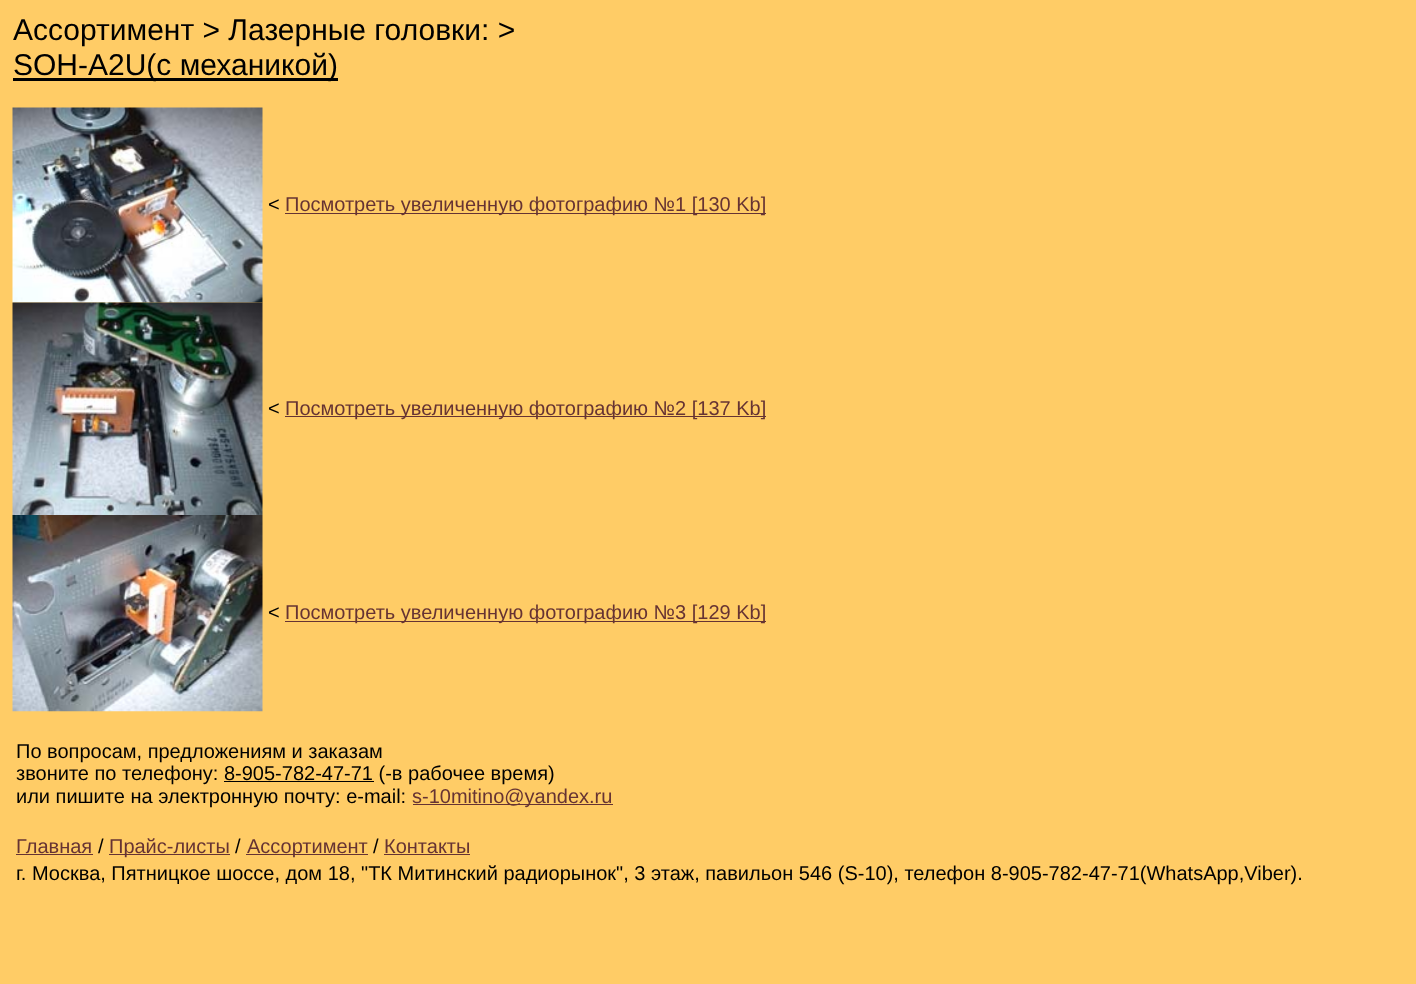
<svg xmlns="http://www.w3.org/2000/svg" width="1416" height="984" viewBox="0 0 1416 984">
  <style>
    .t1 { font: 30px Liberation Sans; fill: #000; }
    .t2 { font: 20px Liberation Sans; fill: #000; }
    .t3 { font: 20px Liberation Sans; fill: #633; }
  </style>
  <rect width="100%" height="100%" fill="#fc6"/>
  <text x="13" y="40" class="t1">Ассортимент &gt; Лазерные головки: &gt;</text>
  <rect x="13" y="78" width="325" height="3" fill="#000"/>
  <text x="13" y="75" class="t1">SOH-A2U(с механикой)</text>
  <image x="12" y="107" width="251" height="196" href="images/1.png"/>
  <text x="268" y="211" class="t2">&lt;</text>
  <rect x="285" y="213" width="481" height="1" fill="#633"/>
  <text x="285" y="211" class="t3">Посмотреть увеличенную фотографию №1 [130 Kb]</text>
  <image x="12" y="302" width="251" height="213" href="images/2.png"/>
  <text x="268" y="415" class="t2">&lt;</text>
  <rect x="285" y="416" width="481" height="1" fill="#633"/>
  <text x="285" y="415" class="t3">Посмотреть увеличенную фотографию №2 [137 Kb]</text>
  <image x="12" y="515" width="251" height="197" href="images/3.png"/>
  <text x="268" y="619" class="t2">&lt;</text>
  <rect x="285" y="621" width="481" height="1" fill="#633"/>
  <text x="285" y="619" class="t3">Посмотреть увеличенную фотографию №3 [129 Kb]</text>
  <text x="16" y="758" class="t2">По вопросам, предложениям и заказам</text>
  <text x="16" y="780" class="t2">звоните по телефону: 8-905-782-47-71 (-в рабочее время)</text>
  <rect x="224" y="781" width="150" height="1" fill="#000"/>
  <text x="16" y="803" class="t2">или пишите на электронную почту: e-mail:</text>
  <rect x="413" y="804" width="200" height="1" fill="#633"/>
  <text x="412" y="803" class="t3">s-10mitino@yandex.ru</text>
  <text x="16" y="853" class="t3">Главная</text>
  <rect x="16" y="854" width="77" height="1" fill="#633"/>
  <text x="98" y="853" class="t2">/</text>
  <rect x="109" y="854" width="121" height="1" fill="#633"/>
  <text x="109" y="853" class="t3">Прайс-листы</text>
  <text x="235" y="853" class="t2">/</text>
  <rect x="246" y="854" width="122" height="1" fill="#633"/>
  <text x="247" y="853" class="t3">Ассортимент</text>
  <text x="373" y="853" class="t2">/</text>
  <text x="384" y="853" class="t3">Контакты</text>
  <rect x="384" y="854" width="86" height="1" fill="#633"/>
  <text x="16" y="880" class="t2">г. Москва, Пятницкое шоссе, дом 18, "ТК Митинский радиорынок", 3 этаж, павильон 546 (S-10), телефон 8-905-782-47-71(WhatsApp,Viber).</text>
</svg>
